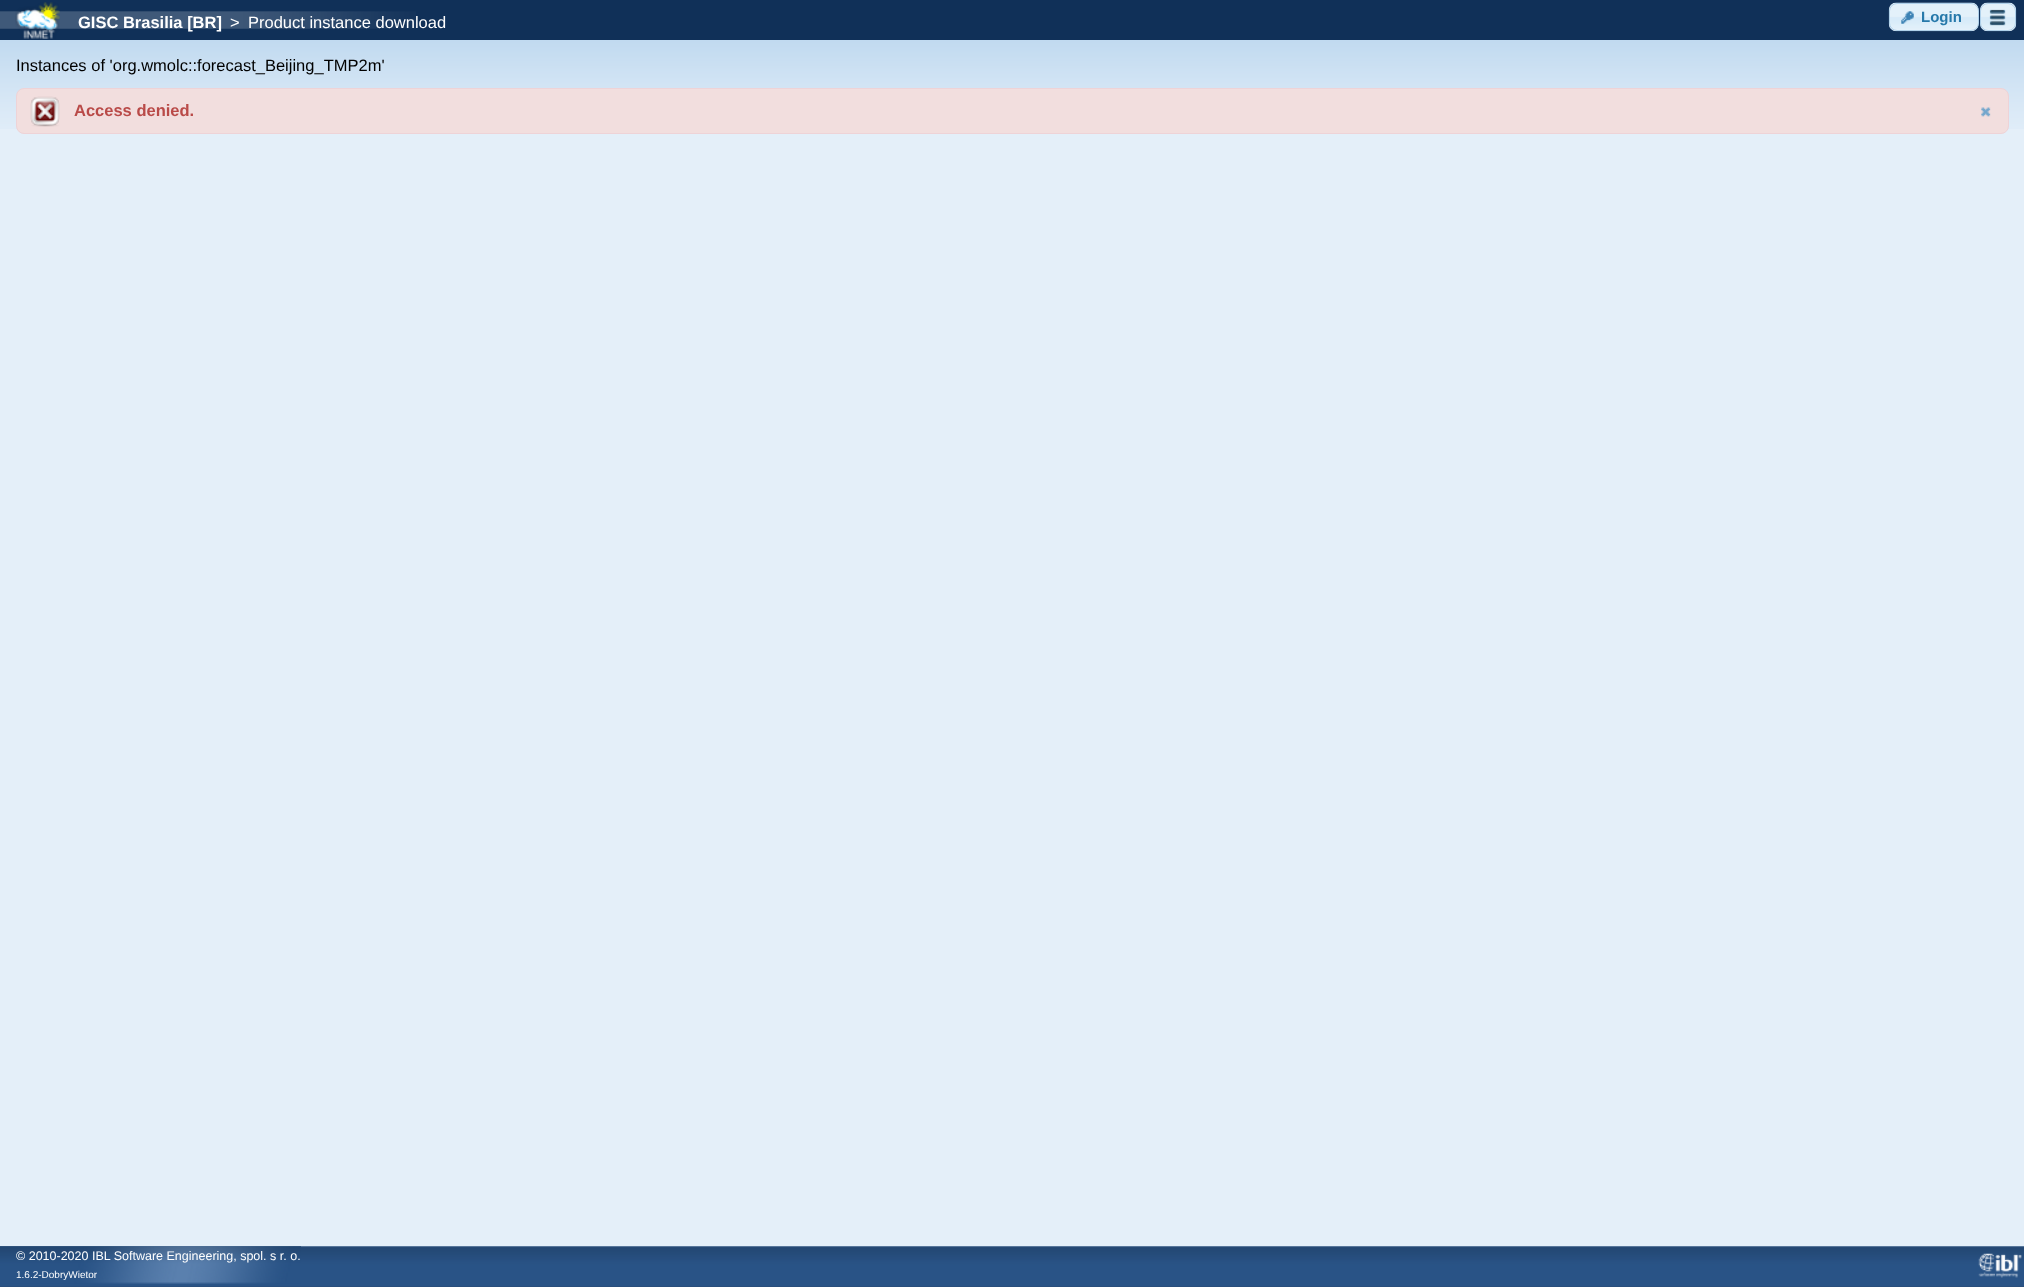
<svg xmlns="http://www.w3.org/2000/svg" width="2024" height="1287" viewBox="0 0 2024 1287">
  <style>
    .t1 { font: bold 16.5px Liberation Sans; fill: #fff; }
    .t2 { font: 16.5px Liberation Sans; fill: #fff; }
    .t3 { font: bold 15px Liberation Sans; fill: #2779aa; }
    .t4 { font: 16.5px Liberation Sans; fill: #000; }
    .t5 { font: bold 16.5px Liberation Sans; fill: #b94a48; }
    .t6 { font: 12.5px Liberation Sans; fill: #fff; }
    .t7 { font: 10px Liberation Sans; fill: #fff; }
  </style>
  <rect width="100%" height="100%" fill="#e4eff9"/>
  <image x="0" y="40" width="2024" height="89" href="images/1.png"/>
  <rect x="0" y="0" width="2024" height="40" fill="#103058"/>
  <image x="0" y="11" width="416" height="18" href="images/2.png"/>
  <image x="15" y="2" width="45" height="37" href="images/3.png"/>
  <text x="78" y="28" class="t1">GISC Brasilia [BR]</text>
  <text x="230" y="28" class="t2">&gt;</text>
  <text x="248" y="28" class="t2">Product instance download</text>
  <image x="1888" y="2" width="91" height="30" href="images/4.png"/>
  <rect x="1889.5" y="3.5" width="89" height="27" rx="7.5" fill="none" stroke="#aed0ea"/>
  <image x="1901" y="11" width="13" height="13" href="images/5.png"/>
  <text x="1921" y="22" class="t3">Login</text>
  <image x="1980" y="2" width="37" height="30" href="images/6.png"/>
  <rect x="1980.5" y="3.5" width="35" height="27" rx="7.5" fill="none" stroke="#aed0ea"/>
  <image x="1989" y="9" width="17" height="17" href="images/7.png"/>
  <text x="16" y="71" class="t4">Instances of 'org.wmolc::forecast_Beijing_TMP2m'</text>
  <rect x="16.5" y="88.5" width="1992" height="45" rx="7.5" fill="#f2dede" stroke="#eed3d7"/>
  <image x="30" y="96" width="30" height="31" href="images/8.png"/>
  <text x="74" y="116" class="t5">Access denied.</text>
  <image x="1981" y="107" width="10" height="10" href="images/9.png"/>
  <image x="0" y="1246" width="2024" height="41" href="images/10.png"/>
  <image x="0" y="1246" width="301" height="38" href="images/11.png"/>
  <text x="16" y="1260" class="t6">© 2010-2020 IBL Software Engineering, spol. s r. o.</text>
  <text x="16" y="1278" class="t7">1.6.2-DobryWietor</text>
  <image x="1978" y="1253" width="44" height="25" href="images/12.png"/>
</svg>
